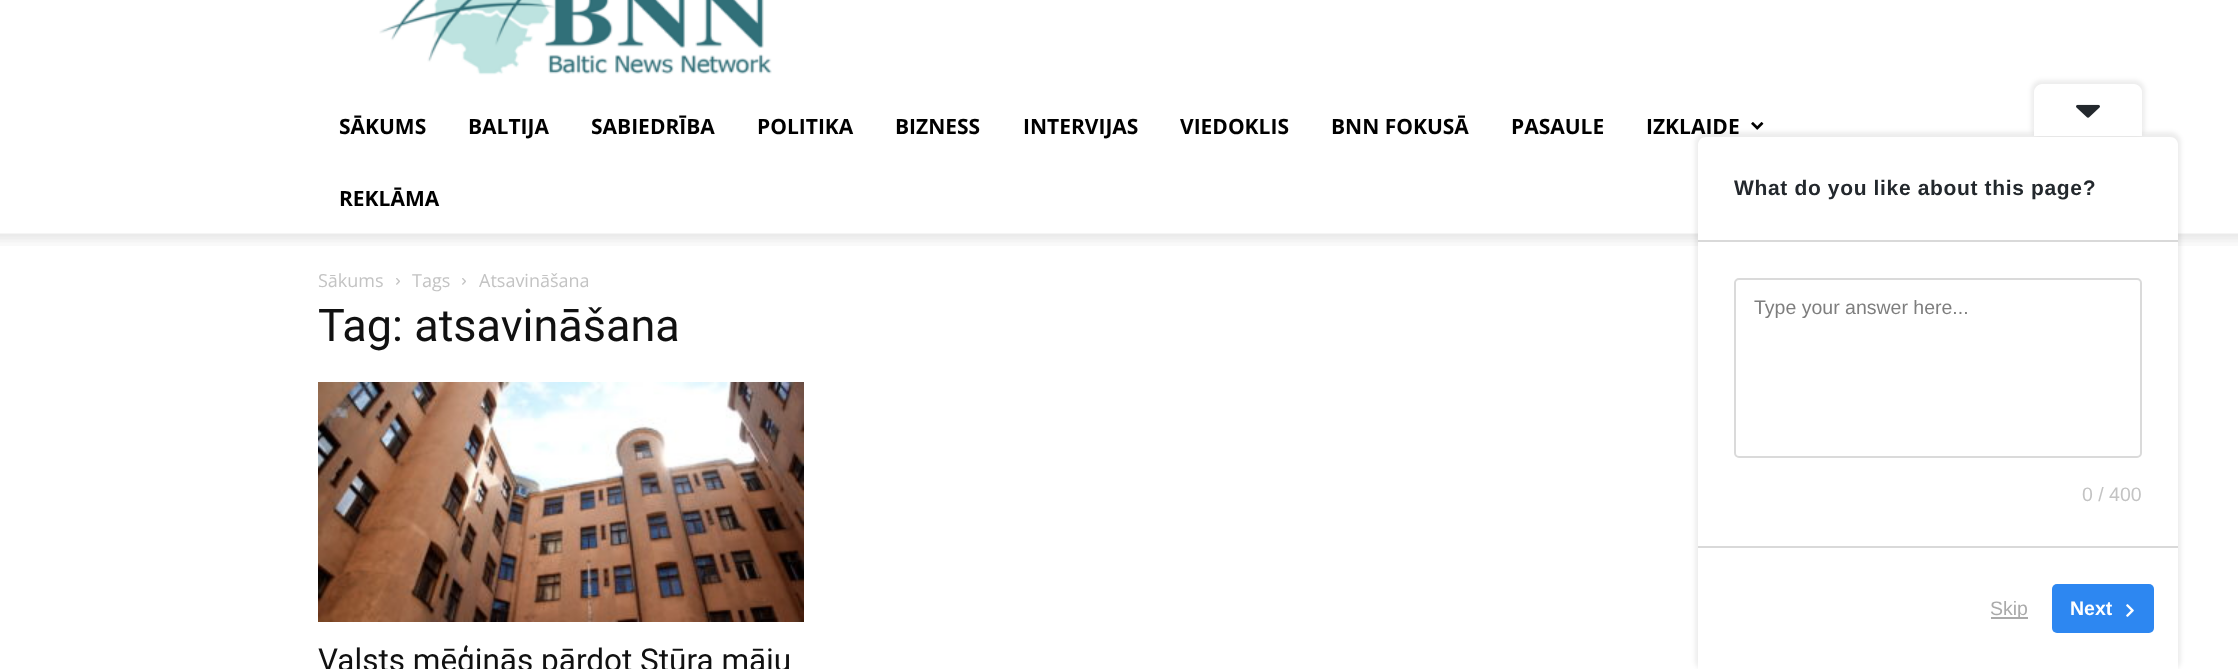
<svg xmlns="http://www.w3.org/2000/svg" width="2238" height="669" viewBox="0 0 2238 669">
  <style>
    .t1 { font: bold 21px Open Sans; fill: #000; }
    .t2 { font: 18px Open Sans; fill: #c3c3c3; }
    .t3 { font: 45px Roboto; fill: #111; }
    .t4 { font: 31.5px Roboto; fill: #111; }
    .t5 { font: bold 21px Liberation Sans; letter-spacing: 0.65px; fill: #23282d; }
    .t6 { font: 19.5px Liberation Sans; fill: #7e7e7e; }
    .t7 { font: 19.5px Liberation Sans; fill: #c3c3c3; }
    .t8 { font: 19.5px Liberation Sans; fill: #aaa; }
    .t9 { font: bold 19.5px Liberation Sans; fill: #fff; }
  </style>
  <defs>
    <clipPath id="clip1"><path d="M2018 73.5H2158L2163.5 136.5H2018Z"/></clipPath>
  </defs>
  <rect width="100%" height="100%" fill="#fff"/>
  <image x="379" y="0" width="393" height="75" href="images/1.png"/>
  <text x="339" y="134" class="t1">SĀKUMS</text>
  <text x="468" y="134" class="t1">BALTIJA</text>
  <text x="591" y="134" class="t1">SABIEDRĪBA</text>
  <text x="757" y="134" class="t1">POLITIKA</text>
  <text x="895" y="134" class="t1">BIZNESS</text>
  <text x="1023" y="134" class="t1">INTERVIJAS</text>
  <text x="1180" y="134" class="t1">VIEDOKLIS</text>
  <text x="1331" y="134" class="t1">BNN FOKUSĀ</text>
  <text x="1511" y="134" class="t1">PASAULE</text>
  <text x="1646" y="134" class="t1">IZKLAIDE</text>
  <image x="1751" y="122" width="13" height="8" href="images/2.png"/>
  <text x="339" y="206" class="t1">REKLĀMA</text>
  <image x="0" y="233" width="2238" height="13" href="images/3.png"/>
  <text x="318" y="287" class="t2">Sākums</text>
  <image x="396" y="278" width="4" height="7" href="images/4.png"/>
  <text x="412" y="287" class="t2">Tags</text>
  <image x="462" y="278" width="4" height="7" href="images/4.png"/>
  <text x="479" y="287" class="t2">Atsavināšana</text>
  <text x="318" y="341" class="t3">Tag: atsavināšana</text>
  <image x="318" y="382" width="486" height="240" href="images/5.png"/>
  <text x="318" y="671" class="t4">Valsts mēģinās pārdot Stūra māju</text>
  <rect x="1695" y="132" width="486" height="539" rx="11" fill="#00000012" filter="blur(2px)"/>
  <path d="M1706 137H2170C2174.5 137 2178 140.5 2178 145V669H1698V145C1698 140.5 1701.5 137 1706 137Z" fill="#fff"/>
  <g clip-path="url(#clip1)">
    <rect x="2031" y="80" width="114" height="58" rx="11" fill="#00000012" filter="blur(2px)"/>
  </g>
  <path d="M2042 84H2134C2138 84 2142 88 2142 92V136H2034V92C2034 88 2038 84 2042 84Z" fill="#fff"/>
  <image x="2076" y="104" width="24" height="14" href="images/6.png"/>
  <text x="1734" y="195" class="t5">What do you like about this page?</text>
  <rect x="1698" y="240" width="480" height="2" fill="#d9d9d9"/>
  <rect x="1698" y="546" width="480" height="2" fill="#d9d9d9"/>
  <rect x="1735" y="279" width="406" height="178" rx="4" fill="none" stroke="#dadada" stroke-width="2"/>
  <text x="1754" y="314" class="t6">Type your answer here...</text>
  <text x="2082" y="501" class="t7">0 / 400</text>
  <rect x="1991" y="617" width="37" height="2" fill="#aaa"/>
  <text x="1990" y="615" class="t8">Skip</text>
  <rect x="2052" y="584" width="102" height="49" rx="5" fill="#2d87f1"/>
  <text x="2070" y="615" class="t9">Next</text>
  <image x="2126" y="604" width="8" height="13" href="images/7.png"/>
</svg>
